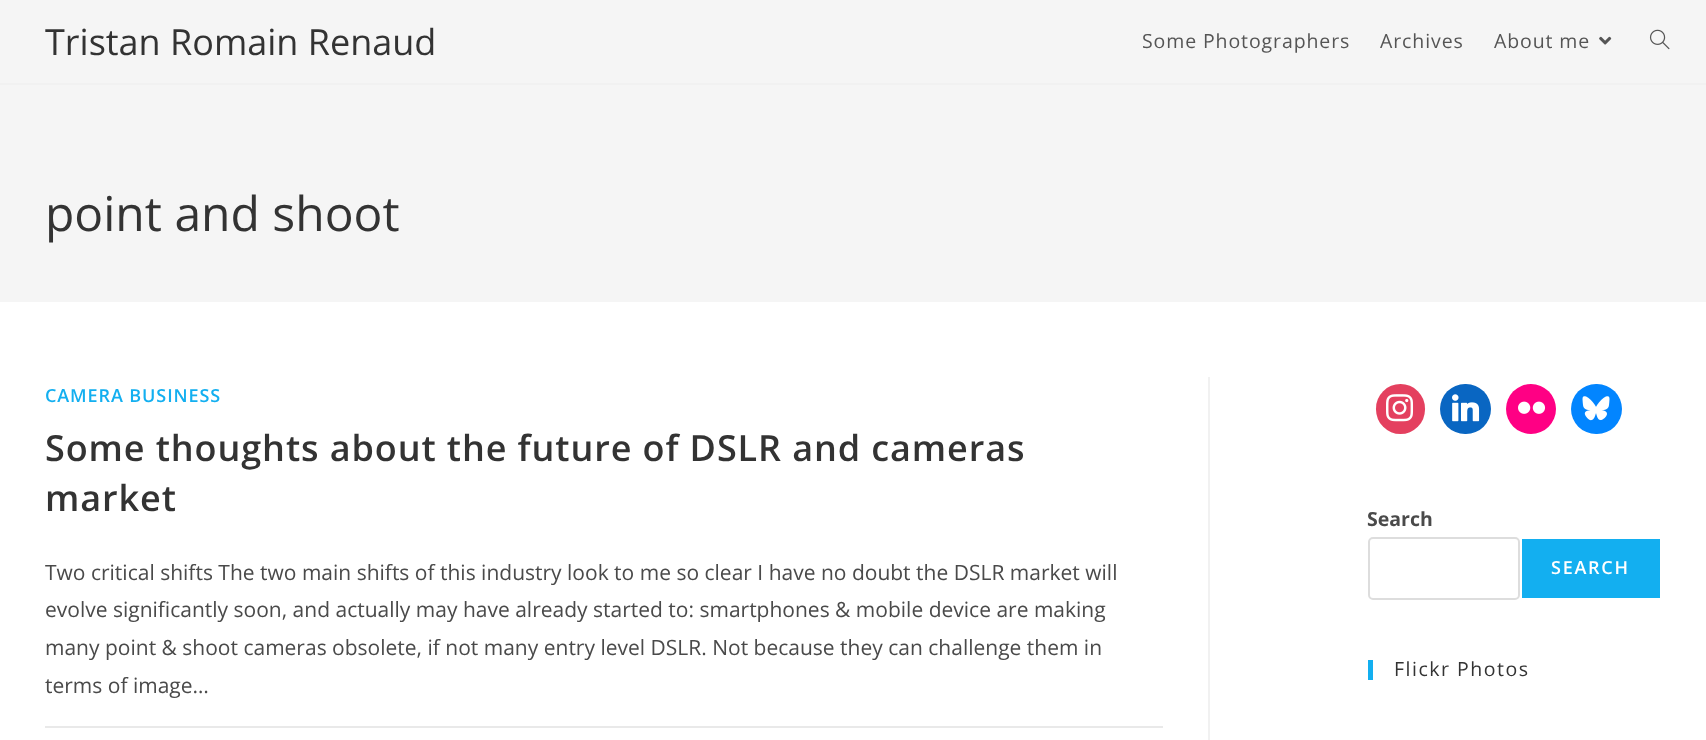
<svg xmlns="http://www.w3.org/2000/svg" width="1706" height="740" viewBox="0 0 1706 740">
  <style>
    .t1 { font: 36px Open Sans; fill: #333; }
    .t2 { font: 19.5px Open Sans; letter-spacing: 0.9px; fill: #555; }
    .t3 { font: 48px Open Sans; fill: #333; }
    .t4 { font: 600 18px Open Sans; letter-spacing: 0.9px; fill: #13aff0; }
    .t5 { font: 600 36px Open Sans; letter-spacing: 0.9px; fill: #333; }
    .t6 { font: 21px Open Sans; fill: #4a4a4a; }
    .t7 { font: bold 19.5px Open Sans; fill: #4a4a4a; }
    .t8 { font: 600 18px Open Sans; letter-spacing: 1.75px; fill: #fff; }
    .t9 { font: 19.5px Open Sans; letter-spacing: 1.5px; fill: #333; }
  </style>
  <rect width="100%" height="100%" fill="#fff"/>
  <rect x="0" y="0" width="1706" height="302" fill="#f5f5f5"/>
  <rect x="0" y="83" width="1706" height="2" fill="#f1f1f1"/>
  <text x="45" y="55" class="t1">Tristan Romain Renaud</text>
  <text x="1142" y="48" class="t2">Some Photographers</text>
  <text x="1380" y="48" class="t2">Archives</text>
  <text x="1494" y="48" class="t2">About me</text>
  <image x="1599" y="36" width="13" height="9" href="images/1.png"/>
  <image x="1649" y="29" width="21" height="21" href="images/2.png"/>
  <text x="45" y="231" class="t3">point and shoot</text>
  <rect x="1208" y="377" width="2" height="363" fill="#f1f1f1"/>
  <text x="45" y="402" class="t4">CAMERA BUSINESS</text>
  <text x="45" y="461" class="t5">Some thoughts about the future of DSLR and cameras</text>
  <text x="45" y="511" class="t5">market</text>
  <text x="45" y="580" class="t6">Two critical shifts The two main shifts of this industry look to me so clear I have no doubt the DSLR market will</text>
  <text x="45" y="617" class="t6">evolve significantly soon, and actually may have already started to: smartphones &amp; mobile device are making</text>
  <text x="45" y="655" class="t6">many point &amp; shoot cameras obsolete, if not many entry level DSLR. Not because they can challenge them in</text>
  <text x="45" y="693" class="t6">terms of image…</text>
  <rect x="45" y="726" width="1118" height="2" fill="#e9e9e9"/>
  <rect x="1376" y="384" width="49" height="50" rx="24.5" fill="#e4405f"/>
  <image x="1386" y="394" width="28" height="28" href="images/3.png"/>
  <rect x="1440" y="384" width="51" height="50" rx="25" fill="#0966c2"/>
  <image x="1452" y="394" width="28" height="28" href="images/4.png"/>
  <circle cx="1531" cy="409" r="25" fill="#ff0084"/>
  <image x="1518" y="401" width="28" height="13" href="images/5.png"/>
  <rect x="1571" y="384" width="51" height="50" rx="25" fill="#0285ff"/>
  <image x="1582" y="396" width="28" height="25" href="images/6.png"/>
  <text x="1367" y="526" class="t7">Search</text>
  <rect x="1369" y="538" width="150" height="61" rx="4" fill="none" stroke="#ddd" stroke-width="2"/>
  <rect x="1522" y="539" width="138" height="59" fill="#13aff0"/>
  <text x="1551" y="574" class="t8">SEARCH</text>
  <rect x="1368" y="660" width="5" height="20" fill="#13aff0"/>
  <text x="1394" y="676" class="t9">Flickr Photos</text>
</svg>
